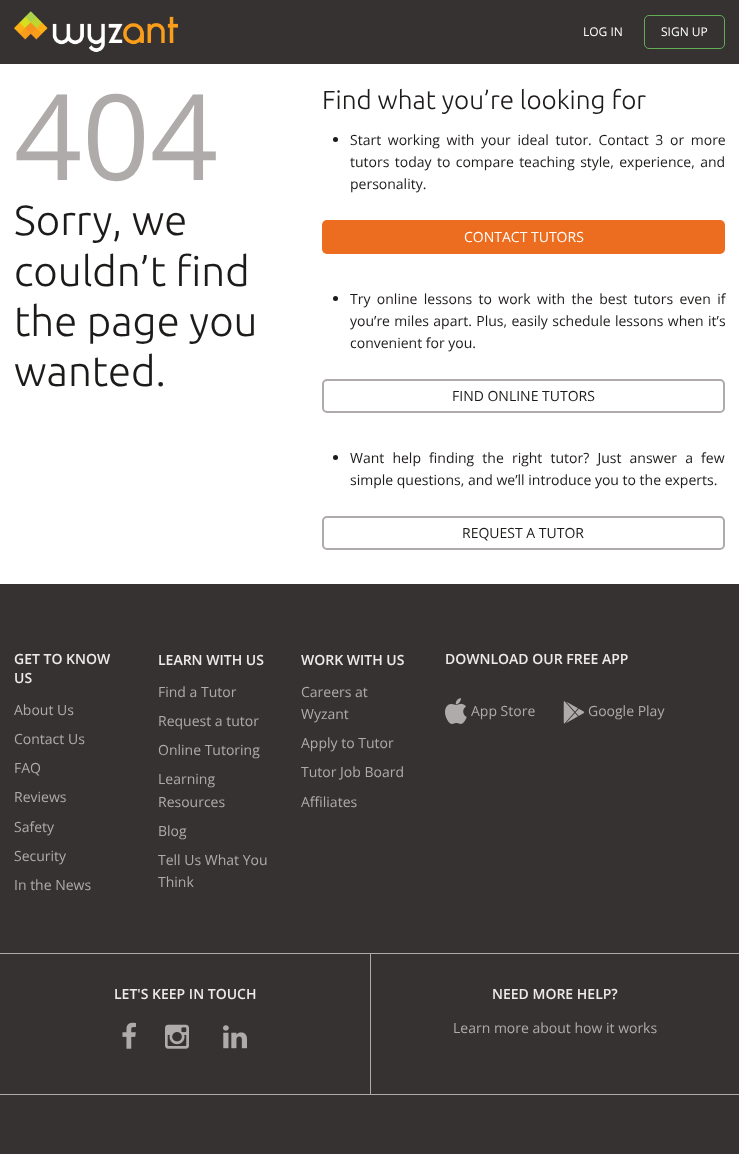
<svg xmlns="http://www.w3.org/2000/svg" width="739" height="1154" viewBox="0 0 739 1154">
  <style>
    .t1 { font: 12px Open Sans; fill: #fff; }
    .t2 { font: 119px Open Sans; fill: #afabaa; }
    .t3 { font: 300 42px Ubuntu; fill: #1d1b1a; }
    .t4 { font: 300 26px Ubuntu; fill: #1d1b1a; }
    .t5 { font: 14px Open Sans; fill: #1d1b1a; }
    .t6 { font: 14px Open Sans; fill: #fff; }
    .t7 { font: 600 14px Open Sans; fill: #eceaea; }
    .t8 { font: 14px Open Sans; fill: #afabaa; }
  </style>
  <rect width="100%" height="100%" fill="#fff"/>
  <rect x="0" y="0" width="739" height="64" fill="#363232"/>
  <image x="14" y="11" width="164" height="41" href="images/1.png"/>
  <text x="583" y="36" class="t1">LOG IN</text>
  <rect x="644.5" y="15.5" width="80" height="33" rx="4.5" fill="none" stroke="#60ad56"/>
  <text x="661" y="36" class="t1">SIGN UP</text>
  <text x="14" y="180" class="t2">404</text>
  <text x="14" y="235" class="t3">Sorry, we</text>
  <text x="14" y="286" class="t3">couldn’t find</text>
  <text x="14" y="336" class="t3">the page you</text>
  <text x="14" y="386" class="t3">wanted.</text>
  <text x="322" y="109" class="t4">Find what you’re looking for</text>
  <circle cx="335.5" cy="139.5" r="2.5" fill="#1d1b1a"/>
  <text x="350" y="145" word-spacing="3" class="t5">Start working with your ideal tutor. Contact 3 or more</text>
  <text x="350" y="167" word-spacing="1.75" class="t5">tutors today to compare teaching style, experience, and</text>
  <text x="350" y="189" class="t5">personality.</text>
  <rect x="322" y="220" width="403" height="34" rx="5" fill="#ed6d20"/>
  <text x="464" y="242" class="t6">CONTACT TUTORS</text>
  <circle cx="335.5" cy="298.5" r="2.5" fill="#1d1b1a"/>
  <text x="350" y="304" word-spacing="2.75" class="t5">Try online lessons to work with the best tutors even if</text>
  <text x="350" y="326" word-spacing="0.75" class="t5">you’re miles apart. Plus, easily schedule lessons when it’s</text>
  <text x="350" y="348" class="t5">convenient for you.</text>
  <rect x="323" y="380" width="401" height="32" rx="4" fill="none" stroke="#afabaa" stroke-width="2"/>
  <text x="452" y="401" class="t5">FIND ONLINE TUTORS</text>
  <circle cx="335.5" cy="457.5" r="2.5" fill="#1d1b1a"/>
  <text x="350" y="463" word-spacing="4.5" class="t5">Want help finding the right tutor? Just answer a few</text>
  <text x="350" y="485" class="t5">simple questions, and we’ll introduce you to the experts.</text>
  <rect x="323" y="517" width="401" height="32" rx="4" fill="none" stroke="#afabaa" stroke-width="2"/>
  <text x="462" y="538" class="t5">REQUEST A TUTOR</text>
  <rect x="0" y="584" width="739" height="570" fill="#363232"/>
  <text x="14" y="664" class="t7">GET TO KNOW</text>
  <text x="14" y="683" class="t7">US</text>
  <text x="14" y="715" class="t8">About Us</text>
  <text x="14" y="744" class="t8">Contact Us</text>
  <text x="14" y="773" class="t8">FAQ</text>
  <text x="14" y="802" class="t8">Reviews</text>
  <text x="14" y="832" class="t8">Safety</text>
  <text x="14" y="861" class="t8">Security</text>
  <text x="14" y="890" class="t8">In the News</text>
  <text x="158" y="665" class="t7">LEARN WITH US</text>
  <text x="158" y="697" class="t8">Find a Tutor</text>
  <text x="158" y="726" class="t8">Request a tutor</text>
  <text x="158" y="755" class="t8">Online Tutoring</text>
  <text x="158" y="784" class="t8">Learning</text>
  <text x="158" y="807" class="t8">Resources</text>
  <text x="158" y="836" class="t8">Blog</text>
  <text x="158" y="865" class="t8">Tell Us What You</text>
  <text x="158" y="887" class="t8">Think</text>
  <text x="301" y="665" class="t7">WORK WITH US</text>
  <text x="301" y="697" class="t8">Careers at</text>
  <text x="301" y="719" class="t8">Wyzant</text>
  <text x="301" y="748" class="t8">Apply to Tutor</text>
  <text x="301" y="777" class="t8">Tutor Job Board</text>
  <text x="301" y="807" class="t8">Affiliates</text>
  <text x="445" y="664" class="t7">DOWNLOAD OUR FREE APP</text>
  <image x="445" y="698" width="22" height="26" href="images/2.png"/>
  <text x="471" y="716" class="t8">App Store</text>
  <image x="563" y="701" width="22" height="23" href="images/3.png"/>
  <text x="588" y="716" class="t8">Google Play</text>
  <rect x="0" y="953" width="739" height="1" fill="#afabaa"/>
  <rect x="0" y="1094" width="739" height="1" fill="#afabaa"/>
  <text x="114" y="999" class="t7">LET'S KEEP IN TOUCH</text>
  <image x="122" y="1022" width="14" height="27" href="images/4.png"/>
  <image x="165" y="1024" width="24" height="25" href="images/5.png"/>
  <image x="223" y="1025" width="24" height="24" href="images/6.png"/>
  <rect x="370" y="954" width="1" height="140" fill="#afabaa"/>
  <text x="492" y="999" class="t7">NEED MORE HELP?</text>
  <text x="453" y="1033" class="t8">Learn more about how it works</text>
</svg>
